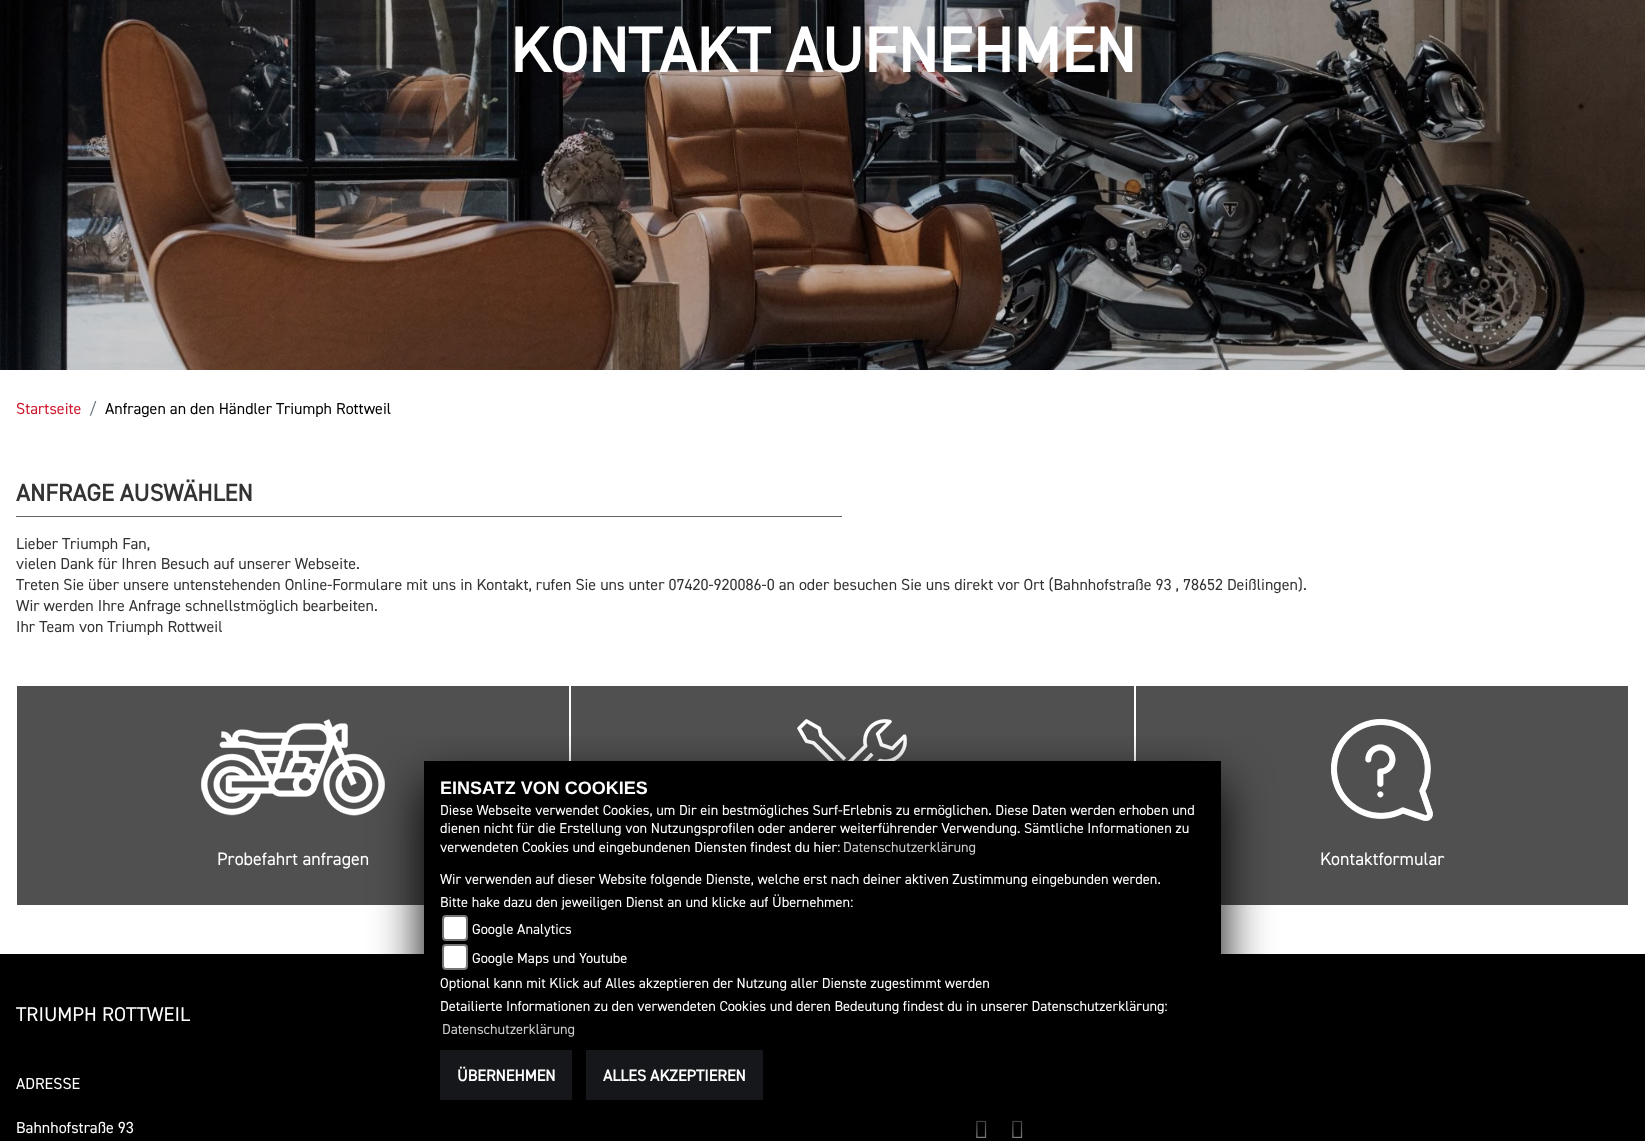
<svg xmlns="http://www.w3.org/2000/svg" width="1645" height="1141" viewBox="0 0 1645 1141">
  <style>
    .t1 { font: bold 63.5px 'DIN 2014'; fill: #fff; }
    .t2 { font: 16px 'DIN 2014'; fill: #cd192d; }
    .t3 { font: 16px 'DIN 2014'; fill: #6c757d; }
    .t4 { font: 16px 'DIN 2014'; fill: #000; }
    .t5 { font: bold 24px 'DIN 2014'; fill: #333; }
    .t6 { font: 16px 'DIN 2014'; fill: #333; }
    .t7 { font: 18px 'DIN 2014'; fill: #fff; }
    .t8 { font: 20px 'DIN 2014'; fill: #fff; }
    .t9 { font: 16px 'DIN 2014'; fill: #fff; }
    .t10 { font: bold 18px Liberation Sans; fill: #fff; }
    .t11 { font: 14.4px 'DIN 2014'; fill: #fff; }
    .t12 { font: 14.4px 'DIN 2014'; fill: #ccc; }
    .t13 { font: bold 16px 'DIN 2014'; fill: #fff; }
  </style>
  <defs>
    <clipPath id="clip1"><rect x="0" y="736" width="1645" height="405"/></clipPath>
  </defs>
  <rect width="100%" height="100%" fill="#fff"/>
  <image x="0" y="0" width="1645" height="370" href="images/1.png"/>
  <text x="510" y="72" class="t1">KONTAKT AUFNEHMEN</text>
  <text x="16" y="414" class="t2">Startseite</text>
  <text x="89" y="414" class="t3">/</text>
  <text x="105" y="414" class="t4">Anfragen an den Händler Triumph Rottweil</text>
  <text x="16" y="501" class="t5">ANFRAGE AUSWÄHLEN</text>
  <rect x="16" y="516" width="826" height="1" fill="#636363"/>
  <text x="16" y="549" class="t6">Lieber Triumph Fan,</text>
  <text x="16" y="569" class="t6">vielen Dank für Ihren Besuch auf unserer Webseite.</text>
  <text x="16" y="590" class="t6">Treten Sie über unsere untenstehenden Online-Formulare mit uns in Kontakt, rufen Sie uns unter 07420-920086-0 an oder besuchen Sie uns direkt vor Ort (Bahnhofstraße 93 , 78652 Deißlingen).</text>
  <text x="16" y="611" class="t6">Wir werden Ihre Anfrage schnellstmöglich bearbeiten.</text>
  <text x="16" y="632" class="t6">Ihr Team von Triumph Rottweil</text>
  <rect x="571" y="686" width="563" height="75" fill="#505050"/>
  <image x="797" y="719" width="110" height="42" href="images/2.png"/>
  <rect x="17" y="686" width="552" height="219" fill="#505050"/>
  <image x="201" y="719" width="184" height="97" href="images/3.png"/>
  <text x="217" y="865" class="t7">Probefahrt anfragen</text>
  <rect x="1136" y="686" width="492" height="219" fill="#505050"/>
  <image x="1331" y="719" width="102" height="102" href="images/4.png"/>
  <text x="1320" y="865" class="t7">Kontaktformular</text>
  <rect x="0" y="954" width="1645" height="187" fill="#000"/>
  <text x="16" y="1021" class="t8">TRIUMPH ROTTWEIL</text>
  <text x="16" y="1089" class="t9">ADRESSE</text>
  <text x="16" y="1133" class="t9">Bahnhofstraße 93</text>
  <image x="976" y="1120" width="11" height="18" href="images/5.png"/>
  <image x="1012" y="1120" width="11" height="18" href="images/5.png"/>
  <g clip-path="url(#clip1)">
    <rect x="424" y="783" width="797" height="355" fill="#000" filter="blur(25px)"/>
  </g>
  <rect x="424" y="761" width="797" height="193" fill="#000"/>
  <text x="440" y="794" class="t10">EINSATZ VON COOKIES</text>
  <text x="440" y="815" class="t11">Diese Webseite verwendet Cookies, um Dir ein bestmögliches Surf-Erlebnis zu ermöglichen. Diese Daten werden erhoben und</text>
  <text x="440" y="833" class="t11">dienen nicht für die Erstellung von Nutzungsprofilen oder anderer weiterführender Verwendung. Sämtliche Informationen zu</text>
  <text x="440" y="852" class="t11">verwendeten Cookies und eingebundenen Diensten findest du hier:</text>
  <text x="843" y="852" class="t12">Datenschutzerklärung</text>
  <text x="440" y="884" class="t11">Wir verwenden auf dieser Website folgende Dienste, welche erst nach deiner aktiven Zustimmung eingebunden werden.</text>
  <text x="440" y="907" class="t11">Bitte hake dazu den jeweiligen Dienst an und klicke auf Übernehmen:</text>
  <rect x="443" y="916" width="24" height="24" rx="3" fill="#fff" stroke="#767676" stroke-width="2"/>
  <text x="472" y="934" class="t11">Google Analytics</text>
  <rect x="443" y="945" width="24" height="24" rx="3" fill="#fff" stroke="#767676" stroke-width="2"/>
  <text x="472" y="963" class="t11">Google Maps und Youtube</text>
  <text x="440" y="988" class="t11">Optional kann mit Klick auf Alles akzeptieren der Nutzung aller Dienste zugestimmt werden</text>
  <text x="440" y="1011" class="t11">Detailierte Informationen zu den verwendeten Cookies und deren Bedeutung findest du in unserer Datenschutzerklärung:</text>
  <text x="442" y="1034" class="t12">Datenschutzerklärung</text>
  <rect x="440" y="1050" width="132" height="50" fill="#16171a"/>
  <text x="457" y="1081" class="t13">ÜBERNEHMEN</text>
  <rect x="586" y="1050" width="177" height="50" fill="#16171a"/>
  <text x="603" y="1081" class="t13">ALLES AKZEPTIEREN</text>
</svg>
